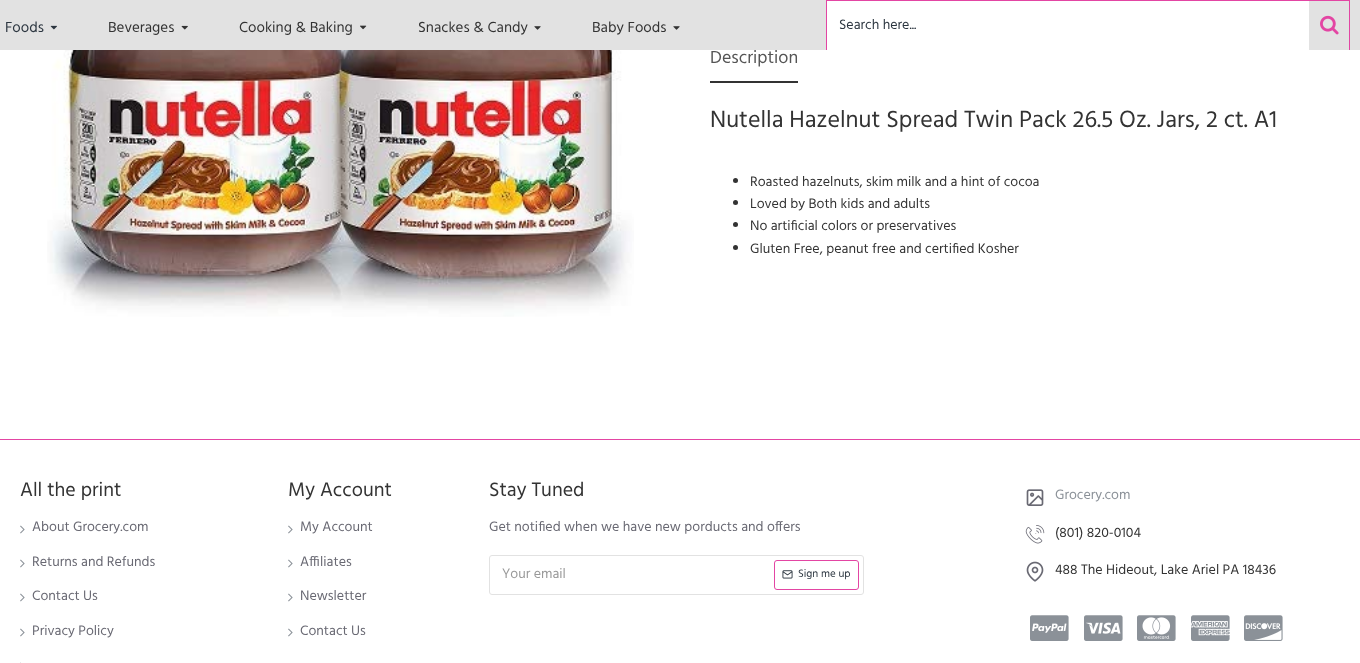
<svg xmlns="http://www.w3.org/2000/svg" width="1360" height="663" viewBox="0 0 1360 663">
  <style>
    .t1 { font: 15px Hind; fill: #2c3640; }
    .t2 { font: 15px Hind; fill: #333; }
    .t3 { font: 14px Hind; fill: #2c3640; }
    .t4 { font: 18px Hind; fill: #555; }
    .t5 { font: 24px Hind; fill: #333; }
    .t6 { font: 14px Hind; fill: #333; }
    .t7 { font: 20px Hind; fill: #333; }
    .t8 { font: 14px Hind; fill: #696973; }
    .t9 { font: 14px Hind; fill: #999; }
    .t10 { font: 11px Hind; fill: #2c3640; }
    .t11 { font: 14px Hind; fill: #8b9198; }
  </style>
  <rect width="100%" height="100%" fill="#fff"/>
  <rect x="0" y="0" width="1360" height="50" fill="#e2e2e2"/>
  <text x="5" y="32" class="t1">Foods</text>
  <image x="50" y="25" width="7" height="5" href="images/1.png"/>
  <text x="108" y="32" class="t2">Beverages</text>
  <image x="181" y="25" width="7" height="5" href="images/2.png"/>
  <text x="239" y="32" class="t2">Cooking &amp; Baking</text>
  <image x="360" y="25" width="7" height="5" href="images/3.png"/>
  <text x="418" y="32" class="t2">Snackes &amp; Candy</text>
  <image x="534" y="26" width="7" height="4" href="images/4.png"/>
  <text x="592" y="32" class="t2">Baby Foods</text>
  <image x="673" y="26" width="7" height="4" href="images/5.png"/>
  <rect x="826" y="0" width="524" height="1" fill="#e345a3"/>
  <rect x="1349" y="0" width="1" height="50" fill="#e345a3"/>
  <rect x="826" y="0" width="1" height="50" fill="#e345a3"/>
  <rect x="827" y="1" width="482" height="49" fill="#fff"/>
  <text x="839" y="29" class="t3">Search here...</text>
  <image x="1320" y="15" width="19" height="20" href="images/6.png"/>
  <image x="47" y="50" width="587" height="267" href="images/7.png"/>
  <rect x="710" y="81" width="88" height="2" fill="#333"/>
  <text x="710" y="63" class="t4">Description</text>
  <text x="710" y="127" class="t5">Nutella Hazelnut Spread Twin Pack 26.5 Oz. Jars, 2 ct. A1</text>
  <circle cx="735.5" cy="180.5" r="2.5" fill="#333"/>
  <text x="750" y="186" class="t6">Roasted hazelnuts, skim milk and a hint of cocoa</text>
  <circle cx="735.5" cy="202.5" r="2.5" fill="#333"/>
  <text x="750" y="208" class="t6">Loved by Both kids and adults</text>
  <circle cx="735.5" cy="224.5" r="2.5" fill="#333"/>
  <text x="750" y="230" class="t6">No artificial colors or preservatives</text>
  <circle cx="735.5" cy="247.5" r="2.5" fill="#333"/>
  <text x="750" y="253" class="t6">Gluten Free, peanut free and certified Kosher</text>
  <rect x="0" y="439" width="1360" height="1" fill="#e345a3"/>
  <text x="20" y="496" class="t7">All the print</text>
  <image x="20" y="525" width="5" height="9" href="images/8.png"/>
  <text x="32" y="531" class="t8">About Grocery.com</text>
  <image x="20" y="559" width="5" height="9" href="images/8.png"/>
  <text x="32" y="566" class="t8">Returns and Refunds</text>
  <image x="20" y="593" width="5" height="9" href="images/8.png"/>
  <text x="32" y="600" class="t8">Contact Us</text>
  <image x="20" y="628" width="5" height="9" href="images/8.png"/>
  <text x="32" y="635" class="t8">Privacy Policy</text>
  <rect x="20" y="662" width="1" height="1" fill="#e8e9ea"/>
  <text x="288" y="496" class="t7">My Account</text>
  <image x="288" y="525" width="5" height="9" href="images/8.png"/>
  <text x="300" y="531" class="t8">My Account</text>
  <image x="288" y="559" width="5" height="9" href="images/8.png"/>
  <text x="300" y="566" class="t8">Affiliates</text>
  <image x="288" y="593" width="5" height="9" href="images/8.png"/>
  <text x="300" y="600" class="t8">Newsletter</text>
  <image x="288" y="628" width="5" height="9" href="images/8.png"/>
  <text x="300" y="635" class="t8">Contact Us</text>
  <text x="489" y="496" class="t7">Stay Tuned</text>
  <text x="489" y="531" class="t8">Get notified when we have new porducts and offers</text>
  <rect x="489.5" y="555.5" width="374" height="39" rx="2.5" fill="none" stroke="#e2e2e2"/>
  <text x="502" y="578" class="t9">Your email</text>
  <rect x="774.5" y="560.5" width="84" height="29" rx="2.5" fill="none" stroke="#e345a3"/>
  <image x="782" y="570" width="11" height="9" href="images/9.png"/>
  <text x="798" y="577" class="t10">Sign me up</text>
  <image x="1026" y="489" width="18" height="17" href="images/10.png"/>
  <text x="1055" y="499" class="t11">Grocery.com</text>
  <image x="1025" y="525" width="20" height="19" href="images/11.png"/>
  <text x="1055" y="537" class="t6">(801) 820-0104</text>
  <image x="1026" y="561" width="18" height="21" href="images/12.png"/>
  <text x="1055" y="574" class="t6">488 The Hideout, Lake Ariel PA 18436</text>
  <image x="1030" y="615" width="39" height="26" href="images/13.png"/>
  <image x="1084" y="615" width="39" height="26" href="images/14.png"/>
  <image x="1137" y="615" width="39" height="26" href="images/15.png"/>
  <image x="1191" y="615" width="39" height="26" href="images/16.png"/>
  <image x="1244" y="615" width="39" height="26" href="images/17.png"/>
</svg>
